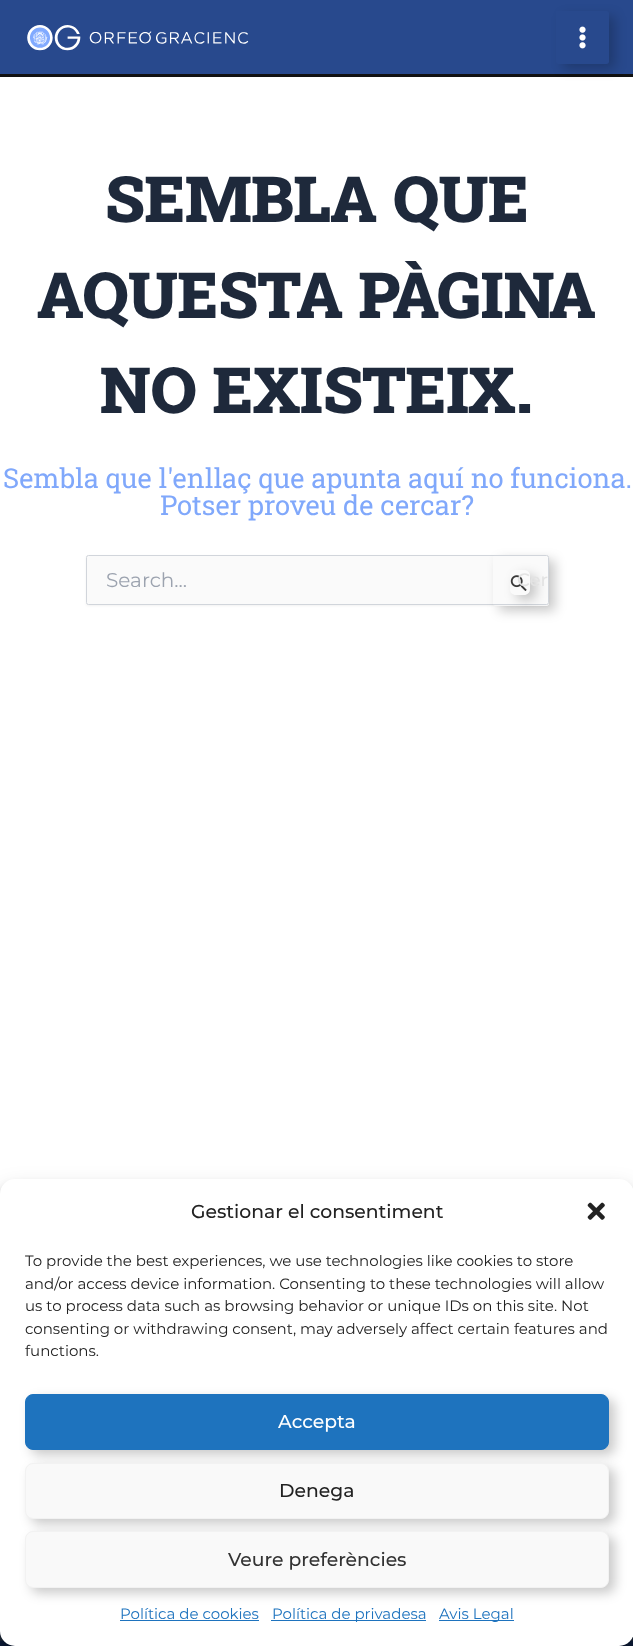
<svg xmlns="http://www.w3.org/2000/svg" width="633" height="1646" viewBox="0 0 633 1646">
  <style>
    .t1 { font: 900 63.75px Roboto Slab; fill: #1e293b; }
    .t2 { font: 27.4px Roboto Slab; fill: #80a8fb; }
    .t3 { font: 20px Montserrat; fill: #9ca3af; }
    .t4 { font: 500 18px Montserrat; fill: #e3e3e3; }
    .t5 { font: 500 18.75px Montserrat; fill: #222; }
    .t6 { font: 15px Montserrat; fill: #222; }
    .t7 { font: 500 18.75px Montserrat; fill: #fff; }
    .t8 { font: 500 18.75px Montserrat; fill: #333; }
    .t9 { font: 15px Montserrat; fill: #1e73be; }
  </style>
  <defs>
    <clipPath id="clip1"><path d="M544 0H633V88H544ZM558.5 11H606.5C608 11 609 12 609 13.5V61.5C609 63 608 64 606.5 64H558.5C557 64 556 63 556 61.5V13.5C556 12 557 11 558.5 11Z" clip-rule="evenodd"/></clipPath>
    <clipPath id="clip2"><path d="M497 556H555V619H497ZM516 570H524C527.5 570 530 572.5 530 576V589C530 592.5 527.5 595 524 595H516C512.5 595 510 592.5 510 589V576C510 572.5 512.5 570 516 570Z" clip-rule="evenodd"/></clipPath>
    <clipPath id="clip3"><path d="M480 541H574V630H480ZM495.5 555H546.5C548 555 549 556 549 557.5V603.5C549 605 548 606 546.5 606H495.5C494 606 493 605 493 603.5V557.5C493 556 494 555 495.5 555Z" clip-rule="evenodd"/></clipPath>
  </defs>
  <rect width="100%" height="100%" fill="#fff"/>
  <rect x="0" y="0" width="633" height="74" fill="#28498d"/>
  <rect x="0" y="74" width="633" height="3" fill="#111"/>
  <image x="27" y="25" width="222" height="26" href="images/1.png"/>
  <g clip-path="url(#clip1)">
    <rect x="563" y="16" width="52" height="53" rx="2.5" fill="#00000036" filter="blur(6px)"/>
  </g>
  <image x="579" y="26" width="7" height="23" href="images/2.png"/>
  <text x="105" y="222" class="t1">SEMBLA QUE</text>
  <text x="37" y="318" class="t1">AQUESTA PÀGINA</text>
  <text x="100" y="413" class="t1">NO EXISTEIX.</text>
  <text x="3" y="488" class="t2">Sembla que l'enllaç que apunta aquí no funciona.</text>
  <text x="160" y="515" class="t2">Potser proveu de cercar?</text>
  <rect x="86" y="556" width="463" height="50" rx="2.5" fill="#0000000d" filter="blur(1px)"/>
  <rect x="86.5" y="555.5" width="462" height="49" rx="2" fill="#fafafa" stroke="#d1d5db"/>
  <text x="106" y="587" class="t3">Search...</text>
  <g clip-path="url(#clip2)">
    <rect x="516" y="575" width="20" height="25" rx="6" fill="#00000036" filter="blur(6px)"/>
  </g>
  <image x="510" y="575" width="17" height="16" href="images/3.png"/>
  <g clip-path="url(#clip3)">
    <rect x="499" y="560" width="56" height="51" rx="2.5" fill="#00000036" filter="blur(6px)"/>
  </g>
  <text x="517" y="586" class="t4">Cer</text>
  <rect x="0" y="1631" width="633" height="10" fill="#1e293b"/>
  <rect x="0" y="1641" width="633" height="5" fill="#0e1e3d"/>
  <rect x="0" y="1186" width="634" height="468" rx="15" fill="#0000003b" filter="blur(4px)"/>
  <rect x="0" y="1191" width="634" height="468" rx="15" fill="#00000030" filter="blur(12.5px)"/>
  <rect x="0" y="1179" width="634" height="467" rx="15" fill="#fff"/>
  <text x="191" y="1218" class="t5">Gestionar el consentiment</text>
  <image x="587" y="1202" width="18" height="18" href="images/4.png"/>
  <text x="25" y="1266" class="t6">To provide the best experiences, we use technologies like cookies to store</text>
  <text x="25" y="1289" class="t6">and/or access device information. Consenting to these technologies will allow</text>
  <text x="25" y="1311" class="t6">us to process data such as browsing behavior or unique IDs on this site. Not</text>
  <text x="25" y="1334" class="t6">consenting or withdrawing consent, may adversely affect certain features and</text>
  <text x="25" y="1356" class="t6">functions.</text>
  <rect x="31" y="1399" width="584" height="56" rx="8" fill="#00000036" filter="blur(6px)"/>
  <rect x="25.5" y="1394.5" width="583" height="55" rx="7.5" fill="#1e73be" stroke="#1e73be"/>
  <text x="278" y="1428" class="t7">Accepta</text>
  <rect x="31" y="1468" width="584" height="56" rx="8" fill="#00000036" filter="blur(6px)"/>
  <rect x="25.5" y="1463.5" width="583" height="55" rx="7.5" fill="#f9f9f9" stroke="#f2f2f2"/>
  <text x="279" y="1497" class="t5">Denega</text>
  <rect x="31" y="1536" width="584" height="57" rx="8" fill="#00000036" filter="blur(6px)"/>
  <rect x="25.5" y="1531.5" width="583" height="56" rx="7.5" fill="#f9f9f9" stroke="#f2f2f2"/>
  <text x="228" y="1566" class="t8">Veure preferències</text>
  <text x="120" y="1619" class="t9">Política de cookies</text>
  <rect x="120" y="1620" width="139" height="1" fill="#1e73be"/>
  <rect x="271" y="1620" width="155" height="1" fill="#1e73be"/>
  <text x="272" y="1619" class="t9">Política de privadesa</text>
  <rect x="439" y="1620" width="75" height="1" fill="#1e73be"/>
  <text x="439" y="1619" class="t9">Avis Legal</text>
</svg>
